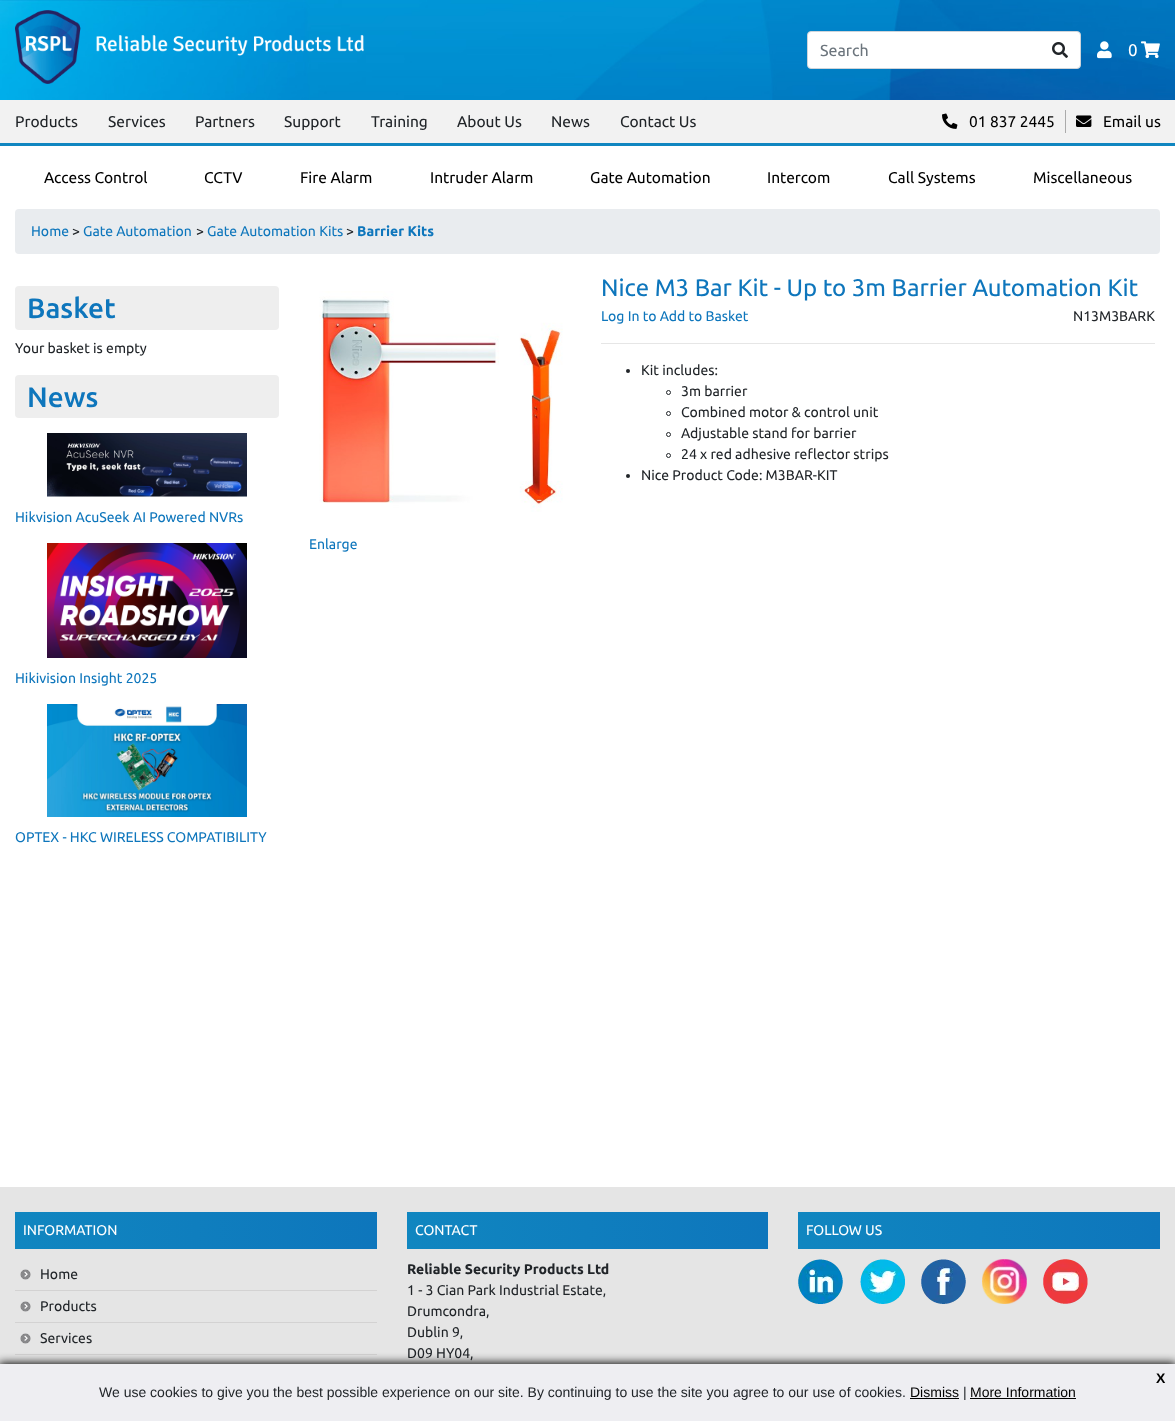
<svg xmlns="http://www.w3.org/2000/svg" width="1175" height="1421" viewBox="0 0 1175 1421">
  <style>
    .t1 { font: 16px Ubuntu; fill: #6c757d; }
    .t2 { font: 17px Ubuntu; fill: #fff; }
    .t3 { font: 15.5px Ubuntu; fill: #212529; }
    .t4 { font: 15.5px Ubuntu; fill: #000; }
    .t5 { font: 14px Ubuntu; fill: #0e76bc; }
    .t6 { font: 14px Ubuntu; fill: #212529; }
    .t7 { font: bold 14px Ubuntu; fill: #0e76bc; }
    .t8 { font: 500 28px Ubuntu; fill: #0e76bc; }
    .t9 { font: 24px Ubuntu; fill: #0e76bc; }
    .t10 { font: 14px Ubuntu; fill: #fff; }
    .t11 { font: bold 14px Ubuntu; fill: #212529; }
    .t12 { font: bold 14px Liberation Sans; fill: #000; }
    .t13 { font: 14px Liberation Sans; fill: #212529; }
    .t14 { font: 14px Liberation Sans; fill: #000; }
  </style>
  <defs>
    <linearGradient id="g1" gradientUnits="userSpaceOnUse" x1="15" y1="1231" x2="377" y2="1231"><stop offset="0" stop-color="#1086c0"/><stop offset="1" stop-color="#0e76bc"/></linearGradient>
    <linearGradient id="g2" gradientUnits="userSpaceOnUse" x1="407" y1="1231" x2="768" y2="1231"><stop offset="0" stop-color="#1086c0"/><stop offset="1" stop-color="#0e76bc"/></linearGradient>
    <linearGradient id="g3" gradientUnits="userSpaceOnUse" x1="798" y1="1231" x2="1160" y2="1231"><stop offset="0" stop-color="#1086c0"/><stop offset="1" stop-color="#0e76bc"/></linearGradient>
  </defs>
  <rect width="100%" height="100%" fill="#fff"/>
  <image x="0" y="0" width="1175" height="100" href="images/1.png"/>
  <image x="15" y="10" width="349" height="74" href="images/2.png"/>
  <rect x="807.5" y="31.5" width="273" height="37" rx="3.5" fill="#fff" stroke="#ced4da"/>
  <text x="820" y="56" class="t1">Search</text>
  <image x="1052" y="42" width="16" height="16" href="images/3.png"/>
  <image x="1097" y="41" width="15" height="18" href="images/4.png"/>
  <text x="1128" y="56" class="t2">0</text>
  <image x="1141" y="41" width="19" height="18" href="images/5.png"/>
  <rect x="0" y="100" width="1175" height="43" fill="#f2f2f2"/>
  <rect x="0" y="143" width="1175" height="3" fill="#1086c0"/>
  <text x="15" y="127" class="t3">Products</text>
  <text x="108" y="127" class="t3">Services</text>
  <text x="195" y="127" class="t3">Partners</text>
  <text x="284" y="127" class="t3">Support</text>
  <text x="371" y="127" class="t3">Training</text>
  <text x="457" y="127" class="t3">About Us</text>
  <text x="551" y="127" class="t3">News</text>
  <text x="620" y="127" class="t3">Contact Us</text>
  <rect x="1065" y="110" width="1" height="23" fill="#ababab"/>
  <image x="942" y="113" width="16" height="16" href="images/6.png"/>
  <text x="969" y="127" class="t4">01 837 2445</text>
  <image x="1076" y="115" width="16" height="12" href="images/7.png"/>
  <text x="1103" y="127" class="t4">Email us</text>
  <text x="44" y="183" class="t4">Access Control</text>
  <text x="204" y="183" class="t4">CCTV</text>
  <text x="300" y="183" class="t4">Fire Alarm</text>
  <text x="430" y="183" class="t4">Intruder Alarm</text>
  <text x="590" y="183" class="t4">Gate Automation</text>
  <text x="767" y="183" class="t4">Intercom</text>
  <text x="888" y="183" class="t4">Call Systems</text>
  <text x="1033" y="183" class="t4">Miscellaneous</text>
  <rect x="15" y="209" width="1145" height="45" rx="4" fill="#e9ecef"/>
  <text x="31" y="236" class="t5">Home</text>
  <text x="72" y="236" class="t6">&gt;</text>
  <text x="83" y="236" class="t5">Gate Automation</text>
  <text x="196" y="236" class="t6">&gt;</text>
  <text x="207" y="236" class="t5">Gate Automation Kits</text>
  <text x="346" y="236" class="t6">&gt;</text>
  <text x="357" y="236" class="t7">Barrier Kits</text>
  <rect x="15" y="286" width="264" height="44" rx="4" fill="#eee"/>
  <text x="27" y="318" class="t8">Basket</text>
  <text x="15" y="353" class="t6">Your basket is empty</text>
  <rect x="15" y="375" width="264" height="43" rx="4" fill="#eee"/>
  <text x="27" y="407" class="t8">News</text>
  <image x="47" y="433" width="200" height="64" href="images/8.png"/>
  <text x="15" y="522" class="t5">Hikvision AcuSeek AI Powered NVRs</text>
  <image x="47" y="543" width="200" height="115" href="images/9.png"/>
  <text x="15" y="683" class="t5">Hikivision Insight 2025</text>
  <image x="47" y="704" width="200" height="113" href="images/10.png"/>
  <text x="15" y="842" class="t5">OPTEX - HKC WIRELESS COMPATIBILITY</text>
  <text x="601" y="296" class="t9">Nice M3 Bar Kit - Up to 3m Barrier Automation Kit</text>
  <text x="601" y="321" class="t5">Log In to Add to Basket</text>
  <text x="1073" y="321" class="t6">N13M3BARK</text>
  <rect x="601" y="343" width="554" height="1" fill="#e6e6e6"/>
  <circle cx="628" cy="371" r="2" fill="#212529"/>
  <text x="641" y="375" class="t6">Kit includes:</text>
  <circle cx="668.5" cy="392.5" r="2" fill="none" stroke="#212529"/>
  <text x="681" y="396" class="t6">3m barrier</text>
  <circle cx="668.5" cy="413.5" r="2" fill="none" stroke="#212529"/>
  <text x="681" y="417" class="t6">Combined motor &amp; control unit</text>
  <circle cx="668.5" cy="434.5" r="2" fill="none" stroke="#212529"/>
  <text x="681" y="438" class="t6">Adjustable stand for barrier</text>
  <circle cx="668.5" cy="455.5" r="2" fill="none" stroke="#212529"/>
  <text x="681" y="459" class="t6">24 x red adhesive reflector strips</text>
  <circle cx="628" cy="476" r="2" fill="#212529"/>
  <text x="641" y="480" class="t6">Nice Product Code: M3BAR-KIT</text>
  <image x="319" y="291" width="244" height="221" href="images/11.png"/>
  <text x="309" y="549" class="t5">Enlarge</text>
  <rect x="0" y="1187" width="1175" height="177" fill="#e5e5e5"/>
  <rect x="15" y="1212" width="362" height="37" fill="url(#g1)"/>
  <text x="23" y="1235" class="t10">INFORMATION</text>
  <image x="20" y="1269" width="11" height="11" href="images/12.png"/>
  <rect x="15" y="1290" width="362" height="1" fill="#d3d2d2"/>
  <text x="40" y="1279" class="t6">Home</text>
  <image x="20" y="1301" width="11" height="11" href="images/12.png"/>
  <rect x="15" y="1322" width="362" height="1" fill="#d3d2d2"/>
  <text x="40" y="1311" class="t6">Products</text>
  <image x="20" y="1333" width="11" height="11" href="images/12.png"/>
  <rect x="15" y="1354" width="362" height="1" fill="#d3d2d2"/>
  <text x="40" y="1343" class="t6">Services</text>
  <rect x="407" y="1212" width="361" height="37" fill="url(#g2)"/>
  <text x="415" y="1235" class="t10">CONTACT</text>
  <text x="407" y="1274" class="t11">Reliable Security Products Ltd</text>
  <text x="407" y="1295" class="t6">1 - 3 Cian Park Industrial Estate,</text>
  <text x="407" y="1316" class="t6">Drumcondra,</text>
  <text x="407" y="1337" class="t6">Dublin 9,</text>
  <text x="407" y="1358" class="t6">D09 HY04,</text>
  <rect x="798" y="1212" width="362" height="37" fill="url(#g3)"/>
  <text x="806" y="1235" class="t10">FOLLOW US</text>
  <image x="798" y="1259" width="45" height="45" href="images/13.png"/>
  <image x="860" y="1259" width="45" height="45" href="images/14.png"/>
  <image x="921" y="1259" width="45" height="45" href="images/15.png"/>
  <image x="982" y="1259" width="45" height="45" href="images/16.png"/>
  <image x="1043" y="1259" width="45" height="45" href="images/17.png"/>
  <rect x="-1" y="1363" width="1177" height="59" fill="#000" filter="blur(5px)"/>
  <rect x="0" y="1364" width="1175" height="57" fill="#eeeef2"/>
  <text x="1156" y="1383" class="t12">X</text>
  <text x="99" y="1397" class="t13">We use cookies to give you the best possible experience on our site. By continuing to use the site you agree to our use of cookies.</text>
  <text x="910" y="1397" class="t14">Dismiss</text>
  <rect x="910" y="1398" width="49" height="1" fill="#000"/>
  <text x="963" y="1397" class="t13">|</text>
  <text x="970" y="1397" class="t14">More Information</text>
  <rect x="970" y="1398" width="106" height="1" fill="#000"/>
</svg>
